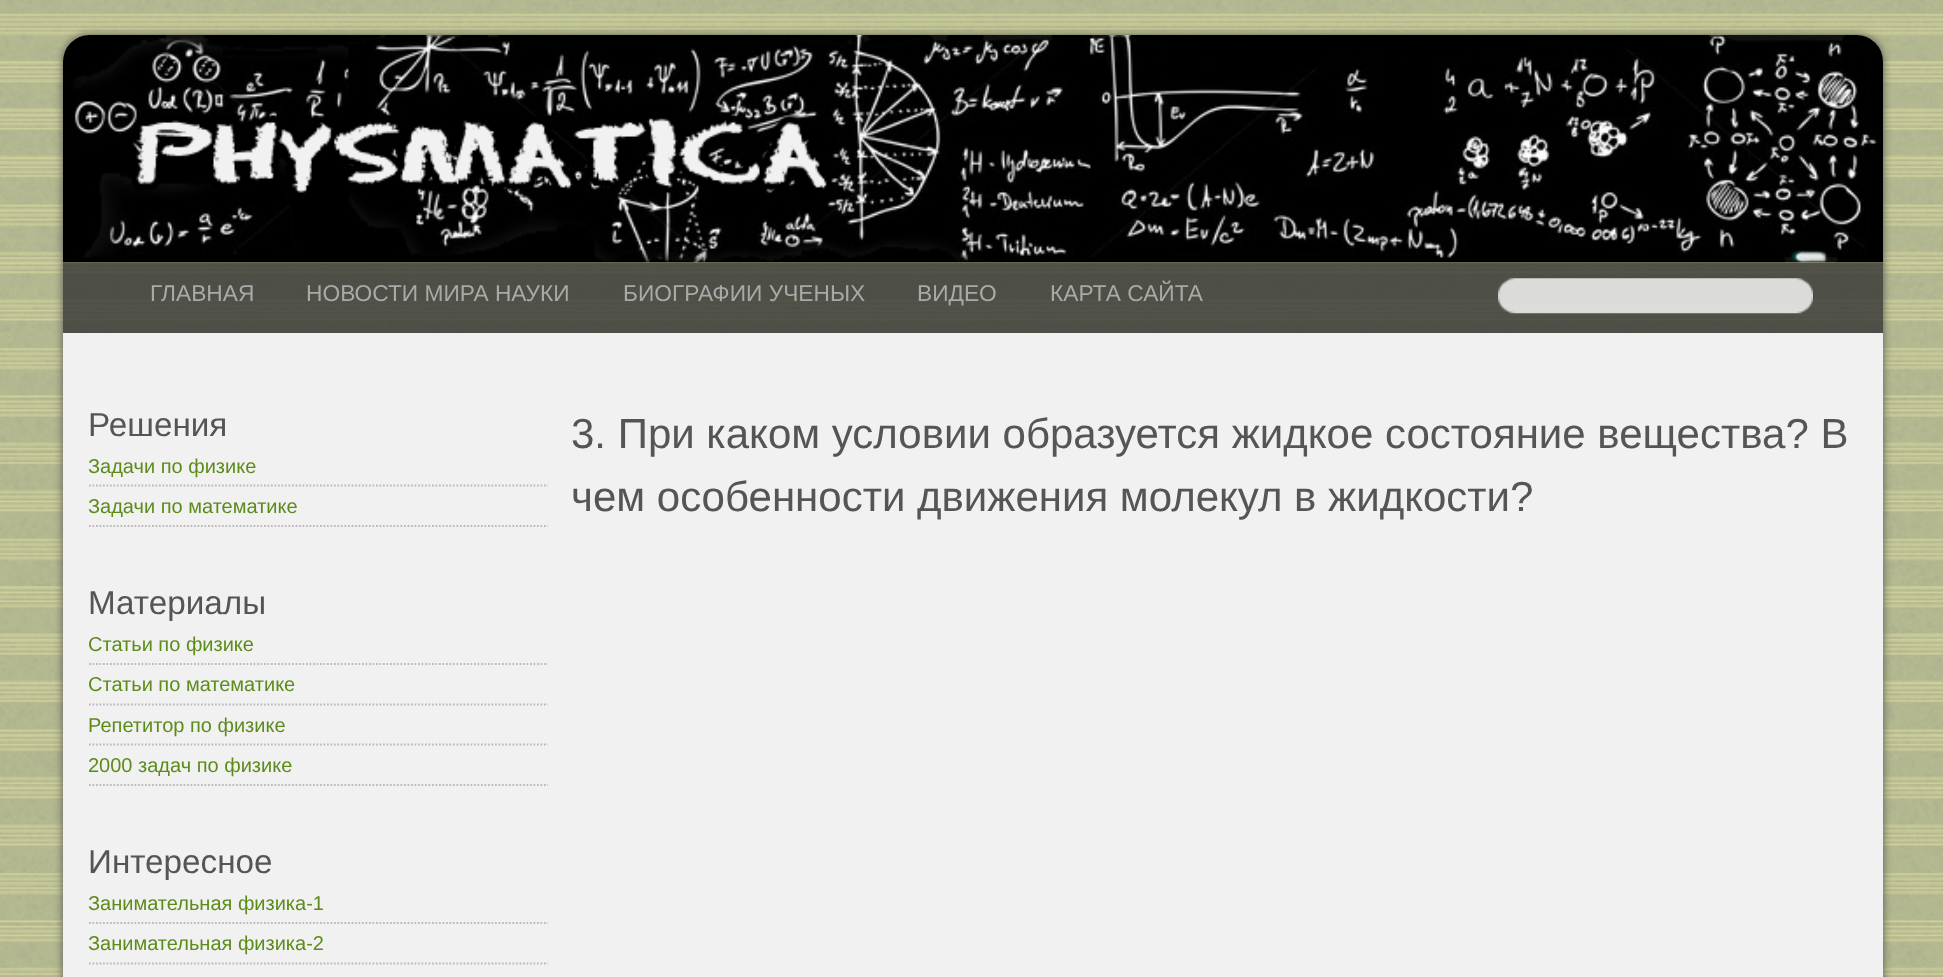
<svg xmlns="http://www.w3.org/2000/svg" width="1943" height="977" viewBox="0 0 1943 977">
  <style>
    .t1 { font: 22.75px Liberation Sans; fill: #a9a9a7; }
    .t2 { font: 33.25px Liberation Sans; fill: #555; }
    .t3 { font: 20px Liberation Sans; fill: #5c8b19; }
    .t4 { font: 42px Liberation Sans; fill: #555; }
  </style>
  <defs>
    <clipPath id="clip1"><path d="M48 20H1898V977H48ZM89 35H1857C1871.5 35 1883 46.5 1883 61V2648C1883 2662.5 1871.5 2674 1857 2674H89C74.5 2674 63 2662.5 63 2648V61C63 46.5 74.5 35 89 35Z" clip-rule="evenodd"/></clipPath>
  </defs>
  <rect width="100%" height="100%" fill="#fff"/>
  <image x="0" y="0" width="1943" height="977" href="images/1.png"/>
  <g clip-path="url(#clip1)">
    <rect x="63" y="35" width="1820" height="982" rx="26" fill="#555" filter="blur(4.5px)"/>
  </g>
  <image x="62" y="35" width="1821" height="228" href="images/2.png"/>
  <image x="131" y="114" width="703" height="81" href="images/3.png"/>
  <rect x="63" y="263" width="1820" height="70" fill="#353535cc"/>
  <text x="150" y="301" class="t1">ГЛАВНАЯ</text>
  <text x="306" y="301" class="t1">НОВОСТИ МИРА НАУКИ</text>
  <text x="623" y="301" class="t1">БИОГРАФИИ УЧЕНЫХ</text>
  <text x="917" y="301" class="t1">ВИДЕО</text>
  <text x="1050" y="301" class="t1">КАРТА САЙТА</text>
  <image x="1498" y="278" width="315" height="36" href="images/4.png"/>
  <rect x="63" y="333" width="1820" height="644" fill="#f1f1f1"/>
  <text x="88" y="436" class="t2">Решения</text>
  <path d="M89 485.5H548" fill="none" stroke="#bbb" stroke-width="1.8" stroke-dasharray="1.75 1.75"/>
  <text x="88" y="473" class="t3">Задачи по физике</text>
  <path d="M89 526H548" fill="none" stroke="#bbb" stroke-width="1.8" stroke-dasharray="1.75 1.75"/>
  <text x="88" y="513" class="t3">Задачи по математике</text>
  <text x="88" y="614" class="t2">Материалы</text>
  <path d="M89 664H548" fill="none" stroke="#bbb" stroke-width="1.8" stroke-dasharray="1.75 1.75"/>
  <text x="88" y="651" class="t3">Статьи по физике</text>
  <path d="M89 704.5H548" fill="none" stroke="#bbb" stroke-width="1.8" stroke-dasharray="1.75 1.75"/>
  <text x="88" y="691" class="t3">Статьи по математике</text>
  <path d="M89 744.5H548" fill="none" stroke="#bbb" stroke-width="1.8" stroke-dasharray="1.75 1.75"/>
  <text x="88" y="732" class="t3">Репетитор по физике</text>
  <path d="M89 785H548" fill="none" stroke="#bbb" stroke-width="1.8" stroke-dasharray="1.75 1.75"/>
  <text x="88" y="772" class="t3">2000 задач по физике</text>
  <text x="88" y="873" class="t2">Интересное</text>
  <path d="M89 923H548" fill="none" stroke="#bbb" stroke-width="1.8" stroke-dasharray="1.75 1.75"/>
  <text x="88" y="910" class="t3">Занимательная физика-1</text>
  <path d="M89 963.5H548" fill="none" stroke="#bbb" stroke-width="1.8" stroke-dasharray="1.75 1.75"/>
  <text x="88" y="950" class="t3">Занимательная физика-2</text>
  <text x="571" y="448" class="t4">3. При каком условии образуется жидкое состояние вещества? В</text>
  <text x="571" y="511" class="t4">чем особенности движения молекул в жидкости?</text>
</svg>
